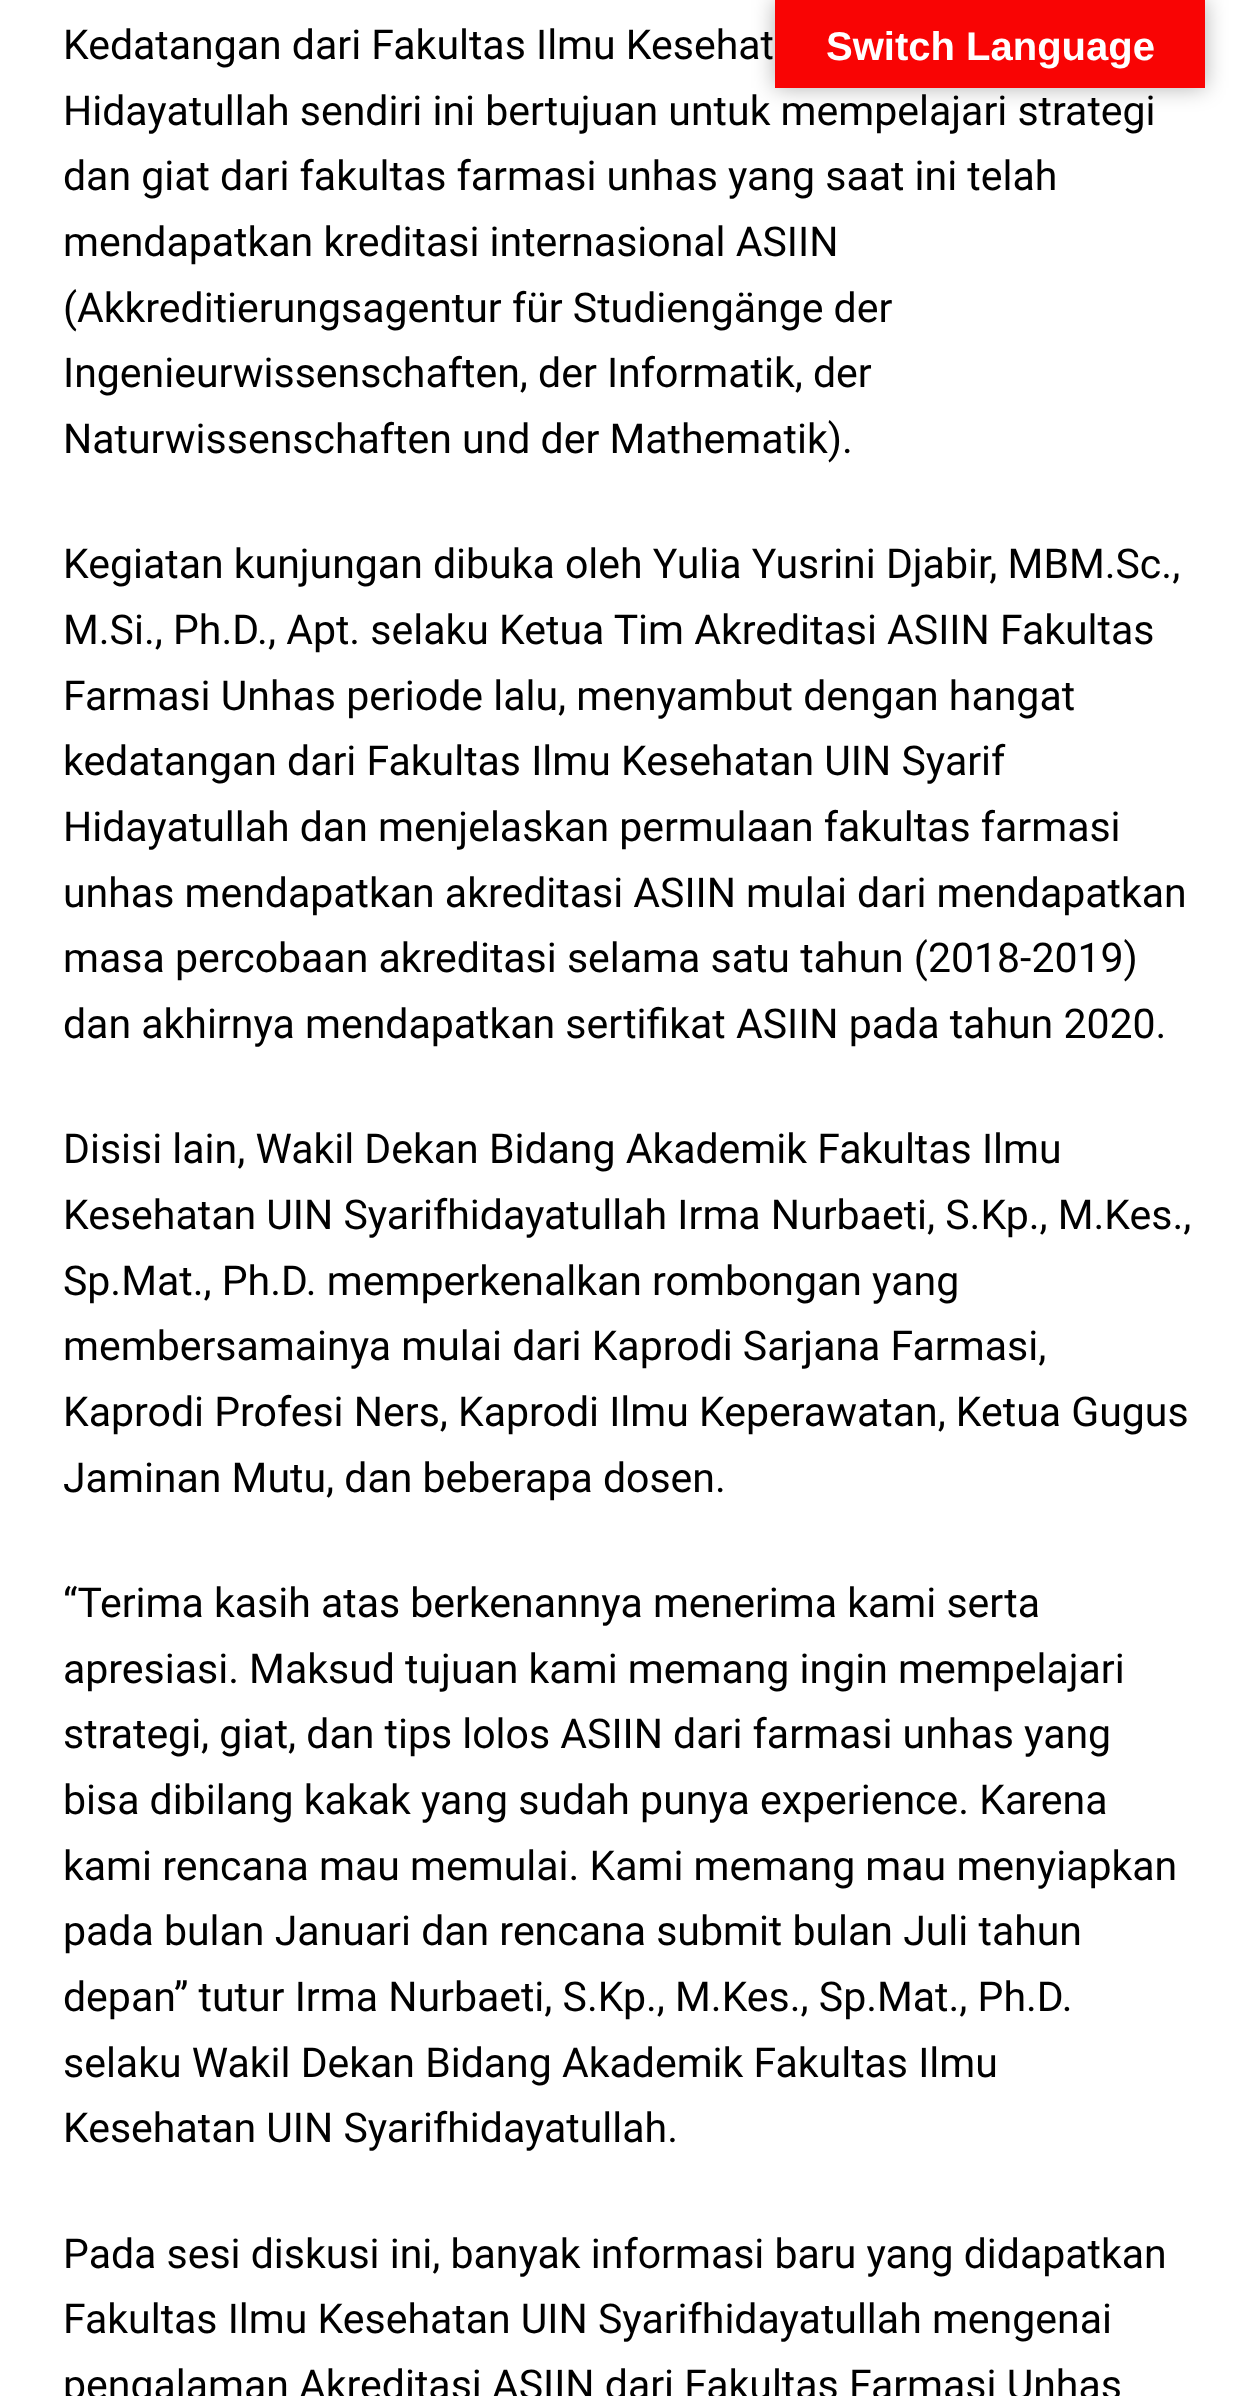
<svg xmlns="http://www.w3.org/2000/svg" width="1253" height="2396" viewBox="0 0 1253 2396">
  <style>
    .t1 { font: 41px Roboto; fill: #000; }
    .t2 { font: bold 40px Liberation Sans; fill: #fff; }
  </style>
  <rect width="100%" height="100%" fill="#fff"/>
  <text x="63" y="59" class="t1">Kedatangan dari Fakultas Ilmu Kesehat</text>
  <text x="63" y="125" class="t1">Hidayatullah sendiri ini bertujuan untuk mempelajari strategi</text>
  <text x="63" y="190" class="t1">dan giat dari fakultas farmasi unhas yang saat ini telah</text>
  <text x="63" y="256" class="t1">mendapatkan kreditasi internasional ASIIN</text>
  <text x="63" y="322" class="t1">(Akkreditierungsagentur für Studiengänge der</text>
  <text x="63" y="387" class="t1">Ingenieurwissenschaften, der Informatik, der</text>
  <text x="63" y="453" class="t1">Naturwissenschaften und der Mathematik).</text>
  <text x="63" y="578" class="t1">Kegiatan kunjungan dibuka oleh Yulia Yusrini Djabir, MBM.Sc.,</text>
  <text x="63" y="644" class="t1">M.Si., Ph.D., Apt. selaku Ketua Tim Akreditasi ASIIN Fakultas</text>
  <text x="63" y="710" class="t1">Farmasi Unhas periode lalu, menyambut dengan hangat</text>
  <text x="63" y="775" class="t1">kedatangan dari Fakultas Ilmu Kesehatan UIN Syarif</text>
  <text x="63" y="841" class="t1">Hidayatullah dan menjelaskan permulaan fakultas farmasi</text>
  <text x="63" y="907" class="t1">unhas mendapatkan akreditasi ASIIN mulai dari mendapatkan</text>
  <text x="63" y="972" class="t1">masa percobaan akreditasi selama satu tahun (2018-2019)</text>
  <text x="63" y="1038" class="t1">dan akhirnya mendapatkan sertifikat ASIIN pada tahun 2020.</text>
  <text x="63" y="1163" class="t1">Disisi lain, Wakil Dekan Bidang Akademik Fakultas Ilmu</text>
  <text x="63" y="1229" class="t1">Kesehatan UIN Syarifhidayatullah Irma Nurbaeti, S.Kp., M.Kes.,</text>
  <text x="63" y="1295" class="t1">Sp.Mat., Ph.D. memperkenalkan rombongan yang</text>
  <text x="63" y="1360" class="t1">membersamainya mulai dari Kaprodi Sarjana Farmasi,</text>
  <text x="63" y="1426" class="t1">Kaprodi Profesi Ners, Kaprodi Ilmu Keperawatan, Ketua Gugus</text>
  <text x="63" y="1492" class="t1">Jaminan Mutu, dan beberapa dosen.</text>
  <text x="63" y="1617" class="t1">“Terima kasih atas berkenannya menerima kami serta</text>
  <text x="63" y="1683" class="t1">apresiasi. Maksud tujuan kami memang ingin mempelajari</text>
  <text x="63" y="1748" class="t1">strategi, giat, dan tips lolos ASIIN dari farmasi unhas yang</text>
  <text x="63" y="1814" class="t1">bisa dibilang kakak yang sudah punya experience. Karena</text>
  <text x="63" y="1880" class="t1">kami rencana mau memulai. Kami memang mau menyiapkan</text>
  <text x="63" y="1945" class="t1">pada bulan Januari dan rencana submit bulan Juli tahun</text>
  <text x="63" y="2011" class="t1">depan” tutur Irma Nurbaeti, S.Kp., M.Kes., Sp.Mat., Ph.D.</text>
  <text x="63" y="2077" class="t1">selaku Wakil Dekan Bidang Akademik Fakultas Ilmu</text>
  <text x="63" y="2142" class="t1">Kesehatan UIN Syarifhidayatullah.</text>
  <text x="63" y="2268" class="t1">Pada sesi diskusi ini, banyak informasi baru yang didapatkan</text>
  <text x="63" y="2333" class="t1">Fakultas Ilmu Kesehatan UIN Syarifhidayatullah mengenai</text>
  <text x="63" y="2399" class="t1">pengalaman Akreditasi ASIIN dari Fakultas Farmasi Unhas</text>
  <rect x="775" y="0" width="430" height="88" fill="#0000004d" filter="blur(11px)"/>
  <rect x="775" y="0" width="430" height="88" fill="#f90404"/>
  <text x="826" y="60" class="t2">Switch Language</text>
</svg>
